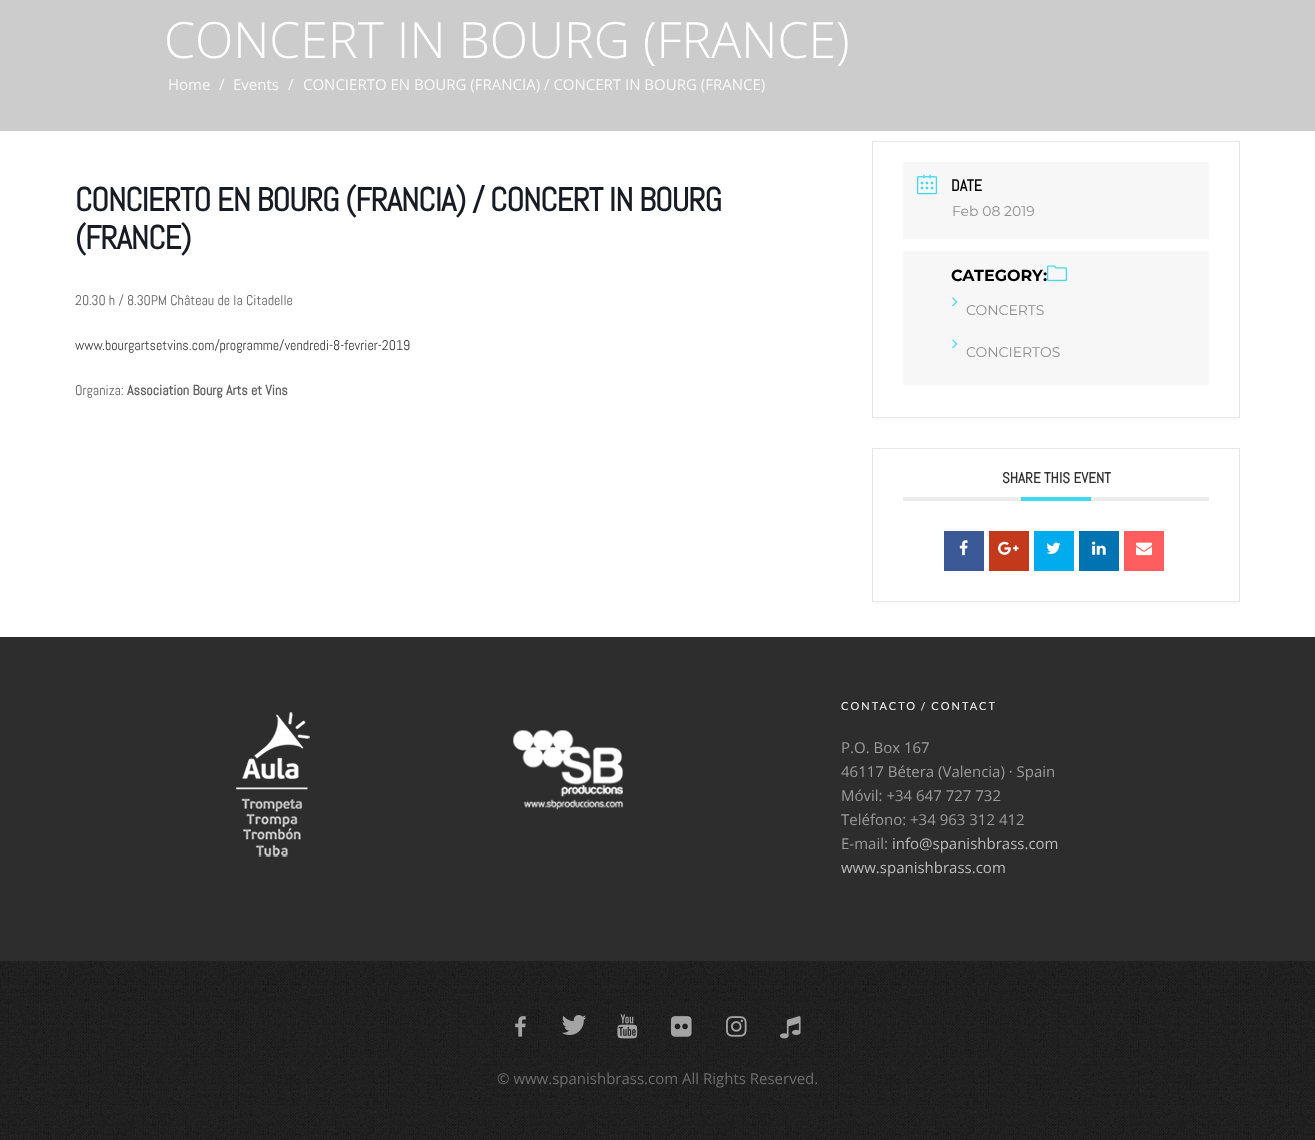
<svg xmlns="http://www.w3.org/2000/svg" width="1315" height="1140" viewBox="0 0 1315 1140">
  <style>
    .t1 { font: 300 50px Open Sans; fill: #fff; }
    .t2 { font: 15px Open Sans; fill: #f9f9f9; }
    .t3 { font: bold 33px Abel; letter-spacing: -1px; fill: #171c24; }
    .t4 { font: 14px Abel; fill: #616161; }
    .t5 { font: 14px Abel; fill: #383838; }
    .t6 { font: bold 14px Abel; fill: #616161; }
    .t7 { font: bold 16px Abel; fill: #000; }
    .t8 { font: 14px Montserrat; fill: #8d8d8d; }
    .t9 { font: bold 16px Montserrat; fill: #000; }
    .t10 { font: bold 15px Abel; fill: #313131; }
    .t11 { font: 11px Lato; letter-spacing: 2px; fill: #fff; }
    .t12 { font: 15px Open Sans; fill: #9c9c9c; }
    .t13 { font: 15px Open Sans; fill: #bcbcbc; }
    .t14 { font: 15px Open Sans; fill: #6e6e6e; }
  </style>
  <rect width="100%" height="100%" fill="#fff"/>
  <rect x="0" y="0" width="1315" height="131" fill="#ccc"/>
  <text x="164" y="58" class="t1">CONCERT IN BOURG (FRANCE)</text>
  <text x="168" y="90" class="t2">Home</text>
  <text x="219" y="90" class="t2">/</text>
  <text x="233" y="90" class="t2">Events</text>
  <text x="288" y="90" class="t2">/</text>
  <text x="303" y="90" class="t2">CONCIERTO EN BOURG (FRANCIA) / CONCERT IN BOURG (FRANCE)</text>
  <text x="75" y="211" class="t3">CONCIERTO EN BOURG (FRANCIA) / CONCERT IN BOURG</text>
  <text x="75" y="249" class="t3">(FRANCE)</text>
  <text x="75" y="305" class="t4">20.30 h / 8.30PM Château de la Citadelle</text>
  <text x="75" y="350" class="t5">www.bourgartsetvins.com/programme/vendredi-8-fevrier-2019</text>
  <text x="75" y="395" class="t4">Organiza:</text>
  <text x="127" y="395" class="t6">Association Bourg Arts et Vins</text>
  <rect x="872" y="418" width="368" height="2" fill="#fbfbfb"/>
  <rect x="872.5" y="141.5" width="367" height="276" fill="none" stroke="#e6e6e6"/>
  <rect x="903" y="162" width="306" height="77" fill="#f7f7f7"/>
  <image x="917" y="174" width="20" height="21" href="images/1.png"/>
  <text x="951" y="191" class="t7">DATE</text>
  <text x="952" y="216" class="t8">Feb 08 2019</text>
  <rect x="903" y="251" width="306" height="134" fill="#f7f7f7"/>
  <text x="951" y="281" class="t9">CATEGORY</text>
  <text x="1043" y="281" class="t9">:</text>
  <image x="1047" y="265" width="20" height="17" href="images/2.png"/>
  <image x="952" y="297" width="6" height="10" href="images/3.png"/>
  <text x="966" y="315" class="t8">CONCERTS</text>
  <image x="952" y="339" width="6" height="10" href="images/3.png"/>
  <text x="966" y="357" class="t8">CONCIERTOS</text>
  <rect x="872" y="602" width="368" height="2" fill="#fbfbfb"/>
  <rect x="872.5" y="448.5" width="367" height="153" fill="none" stroke="#e6e6e6"/>
  <rect x="903" y="497" width="306" height="4" fill="#ebebeb"/>
  <text x="1002" y="483" class="t10">SHARE THIS EVENT</text>
  <rect x="1021" y="497" width="70" height="4" fill="#40d9f1"/>
  <rect x="944" y="531" width="40" height="40" fill="#3b5996"/>
  <image x="959" y="540" width="9" height="16" href="images/4.png"/>
  <rect x="989" y="531" width="40" height="40" fill="#c3391c"/>
  <image x="998" y="541" width="21" height="14" href="images/5.png"/>
  <rect x="1034" y="531" width="40" height="40" fill="#00acee"/>
  <image x="1046" y="542" width="15" height="12" href="images/6.png"/>
  <rect x="1079" y="531" width="40" height="40" fill="#0073b2"/>
  <image x="1092" y="541" width="14" height="14" href="images/7.png"/>
  <rect x="1124" y="531" width="40" height="40" fill="#ff5d5e"/>
  <image x="1136" y="542" width="16" height="14" href="images/8.png"/>
  <rect x="0" y="637" width="1315" height="324" fill="#2d2d2d"/>
  <image x="236" y="712" width="74" height="145" href="images/9.png"/>
  <image x="513" y="730" width="110" height="80" href="images/10.png"/>
  <text x="841" y="710" class="t11">CONTACTO / CONTACT</text>
  <text x="841" y="753" class="t12">P.O. Box 167</text>
  <text x="841" y="777" class="t12">46117 Bétera (Valencia) · Spain</text>
  <text x="841" y="801" class="t12">Móvil: +34 647 727 732</text>
  <text x="841" y="825" class="t12">Teléfono: +34 963 312 412</text>
  <text x="841" y="849" class="t12">E-mail:</text>
  <text x="892" y="849" class="t13">info@spanishbrass.com</text>
  <text x="841" y="873" class="t13">www.spanishbrass.com</text>
  <image x="0" y="961" width="1315" height="179" href="images/11.png"/>
  <image x="515" y="1016" width="11" height="21" href="images/12.png"/>
  <image x="562" y="1015" width="25" height="20" href="images/13.png"/>
  <image x="617" y="1014" width="21" height="25" href="images/14.png"/>
  <image x="671" y="1016" width="21" height="21" href="images/15.png"/>
  <image x="726" y="1016" width="21" height="21" href="images/16.png"/>
  <image x="780" y="1016" width="21" height="23" href="images/17.png"/>
  <text x="497" y="1084" class="t14">© www.spanishbrass.com All Rights Reserved.</text>
</svg>
